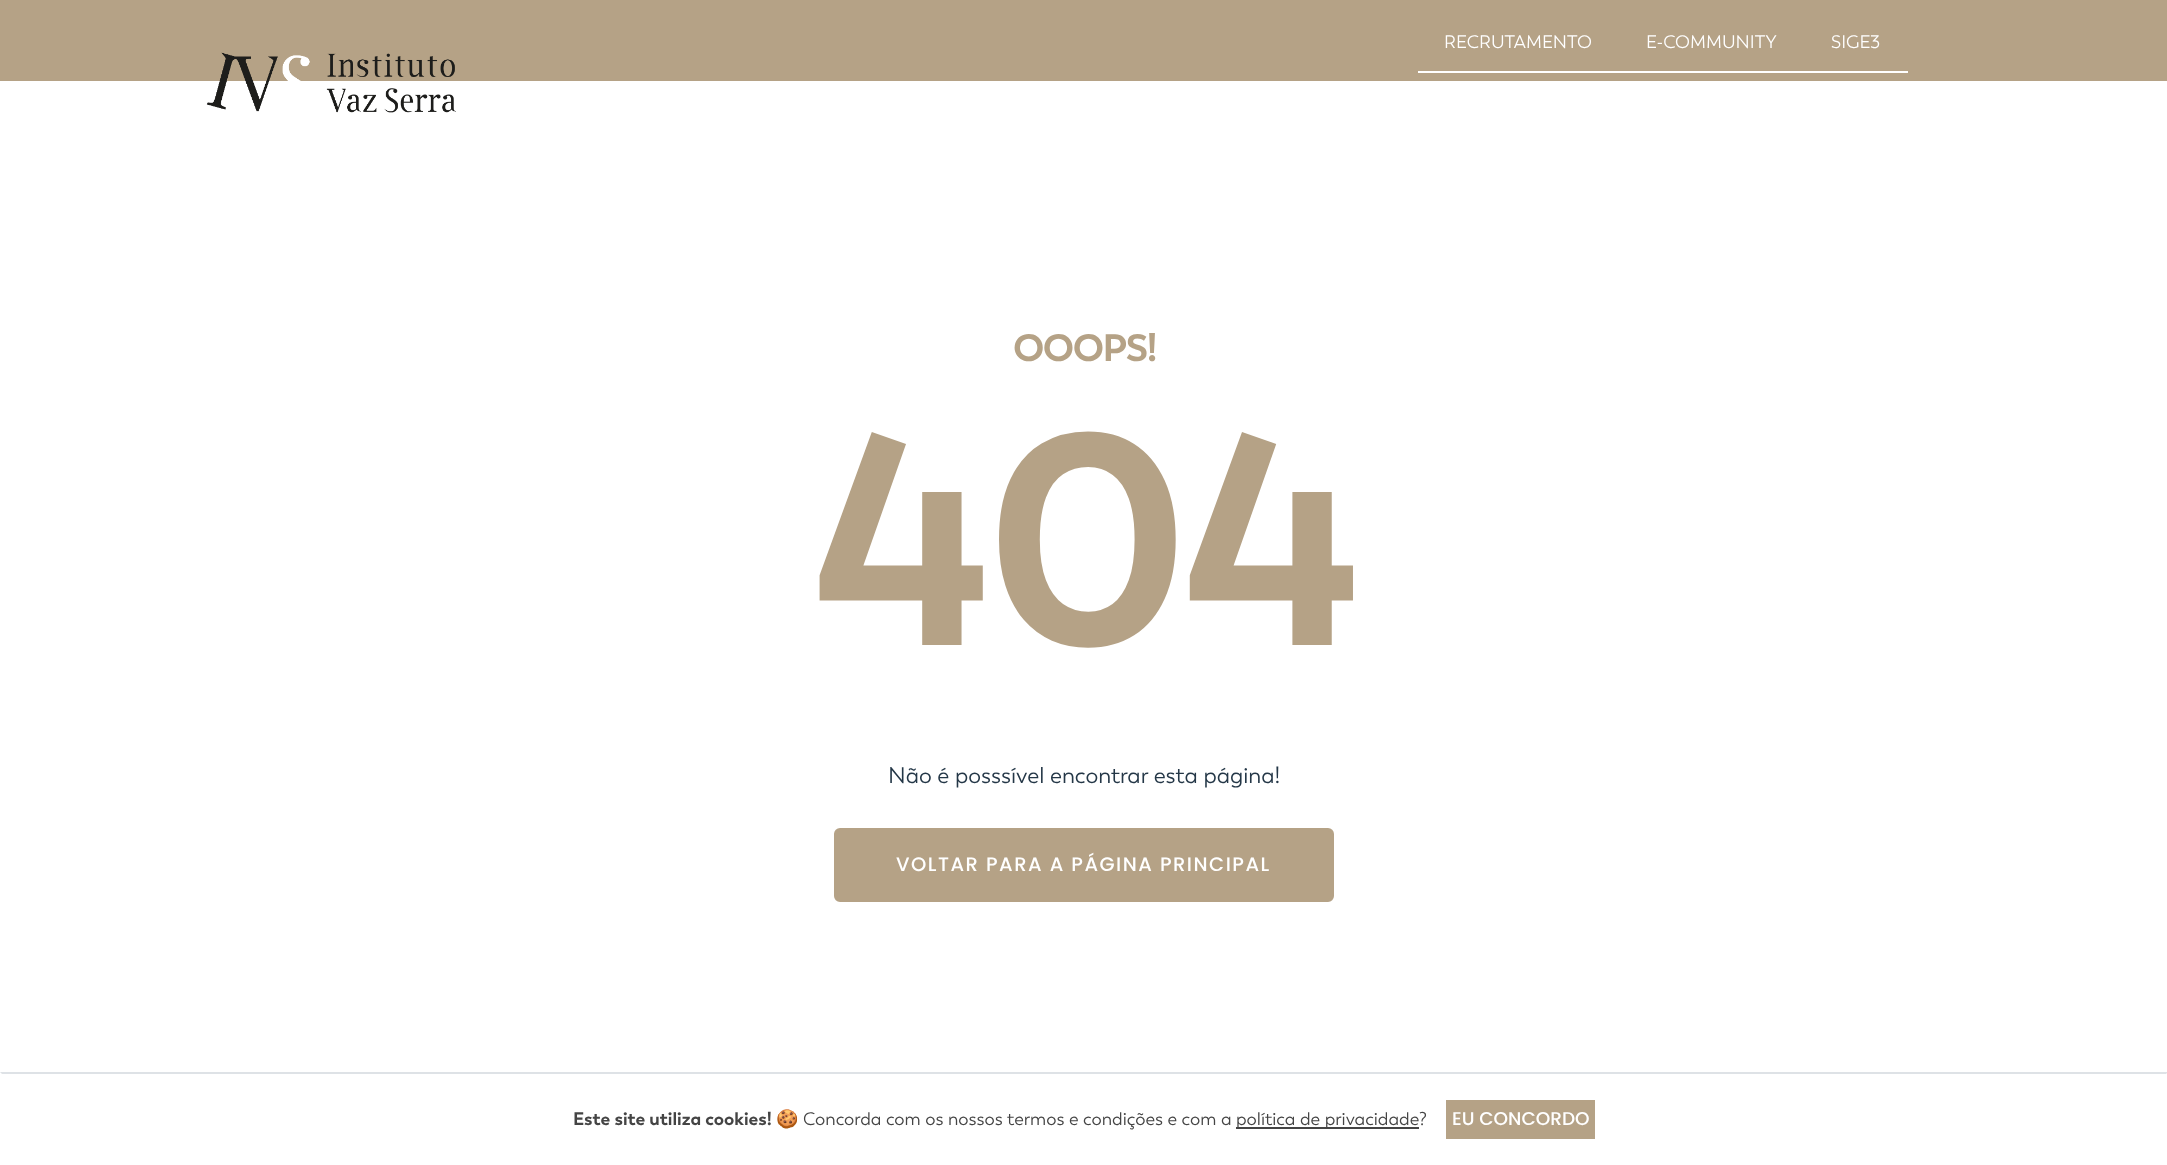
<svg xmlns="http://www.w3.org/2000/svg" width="2167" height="1165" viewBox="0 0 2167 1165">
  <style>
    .t1 { font: 18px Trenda; fill: #fff; }
    .t2 { font: bold 38px Trenda; letter-spacing: -1.5px; fill: #b5a286; }
    .t3 { font: bold 300px Trenda; letter-spacing: -7.5px; fill: #b5a286; }
    .t4 { font: 22.5px Trenda; fill: #243747; }
    .t5 { font: 500 19.5px Poppins; letter-spacing: 1.5px; fill: #fff; }
    .t6 { font: bold 18px Trenda; fill: #444; }
    .t7 { font: 18px Noto Color Emoji; fill: #444; }
    .t8 { font: 18px Trenda; fill: #444; }
    .t9 { font: 500 18.5px Poppins; fill: #fff; }
  </style>
  <rect width="100%" height="100%" fill="#fff"/>
  <rect x="0" y="0" width="2167" height="81" fill="#b5a286"/>
  <rect x="1418" y="71" width="490" height="2" fill="#fff"/>
  <text x="1444" y="48" class="t1">RECRUTAMENTO</text>
  <text x="1646" y="48" class="t1">E-COMMUNITY</text>
  <text x="1831" y="48" class="t1">SIGE3</text>
  <image x="206" y="52" width="250" height="61" href="images/1.png"/>
  <text x="1013" y="361" class="t2">OOOPS!</text>
  <text x="813" y="645" class="t3">404</text>
  <text x="888" y="783" class="t4">Não é posssível encontrar esta página!</text>
  <rect x="835.5" y="829.5" width="497" height="71" rx="4.5" fill="#b5a286" stroke="#b5a286" stroke-width="3"/>
  <text x="896" y="871" class="t5">VOLTAR PARA A PÁGINA PRINCIPAL</text>
  <path d="M0 1072H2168L2166 1074H2Z" fill="#dee2e6"/>
  <text x="573" y="1125" class="t6">Este site utiliza cookies!</text>
  <text x="776" y="1125" class="t7">🍪</text>
  <text x="803" y="1125" class="t8">Concorda com os nossos termos e condições e com a</text>
  <rect x="1236" y="1127" width="183" height="2" fill="#444"/>
  <text x="1236" y="1125" class="t8">política de privacidade</text>
  <text x="1419" y="1125" class="t8">?</text>
  <rect x="1446" y="1100" width="149" height="39" fill="#b5a286"/>
  <text x="1452" y="1125" class="t9">EU CONCORDO</text>
</svg>
